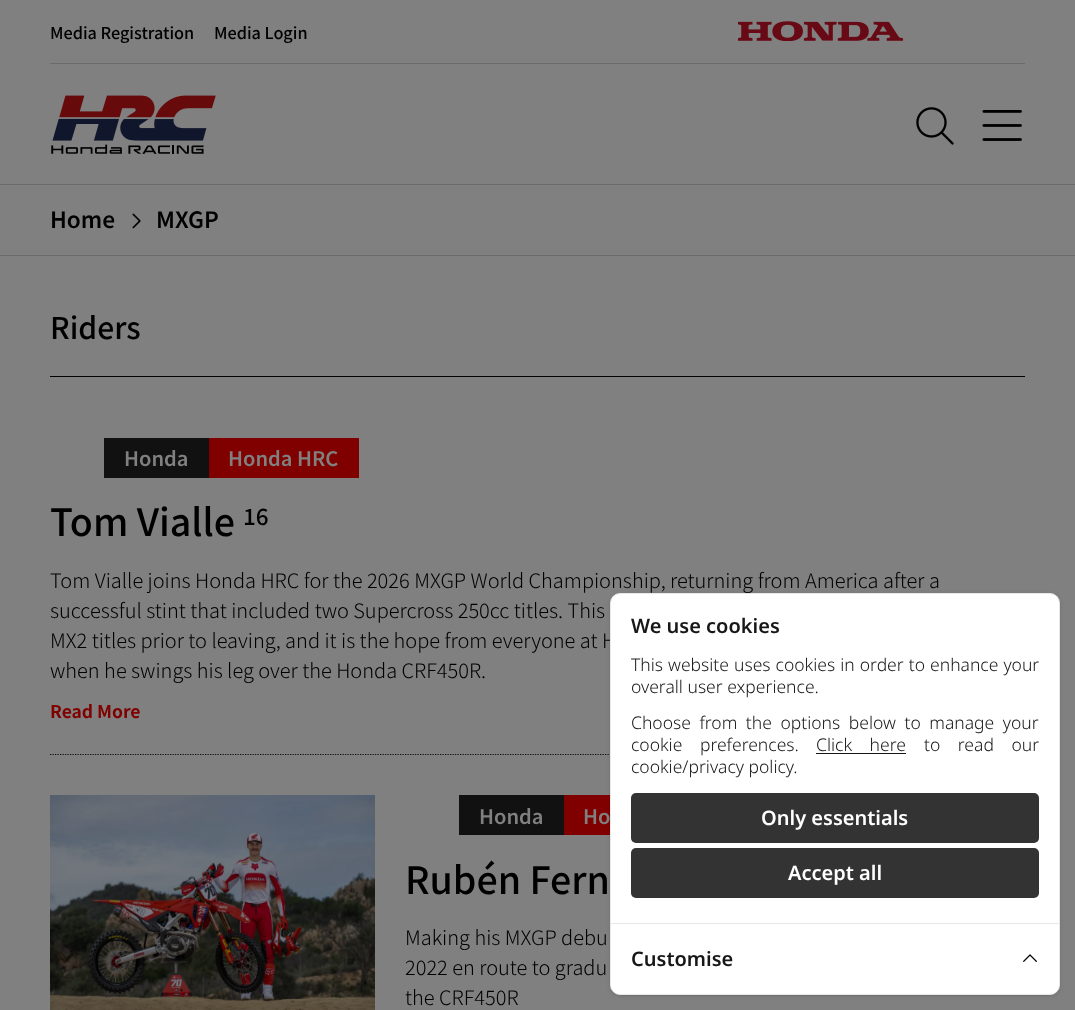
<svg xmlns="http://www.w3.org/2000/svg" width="1075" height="1010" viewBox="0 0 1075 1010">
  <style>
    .t1 { font: 500 16.25px Noto Sans JP; fill: #000; }
    .t2 { font: 600 22.5px Noto Sans JP; fill: #000; }
    .t3 { font: 500 30px Noto Sans JP; fill: #000; }
    .t4 { font: 600 20px Noto Sans JP; fill: #808080; }
    .t5 { font: 500 37.5px Noto Sans JP; fill: #000; }
    .t6 { font: 500 22.5px Noto Sans JP; fill: #000; }
    .t7 { font: 300 20px Noto Sans JP; fill: #000; }
    .t8 { font: bold 17.5px Noto Sans JP; fill: #800000; }
    .t9 { font: 600 20px Noto Sans; fill: #171717; }
    .t10 { font: 300 17.5px Noto Sans; fill: #171717; }
    .t11 { font: 600 20px Noto Sans; fill: #fff; }
  </style>
  <rect width="100%" height="100%" fill="#808080"/>
  <rect x="0" y="184" width="1075" height="1" fill="#696b6e"/>
  <rect x="50" y="63" width="975" height="1" fill="#696b6e"/>
  <text x="50" y="39" class="t1">Media Registration</text>
  <text x="214" y="39" class="t1">Media Login</text>
  <image x="738" y="21" width="165" height="20" href="images/1.png"/>
  <image x="51" y="95" width="165" height="59" href="images/2.png"/>
  <image x="916" y="107" width="38" height="38" href="images/3.png"/>
  <image x="982" y="110" width="40" height="31" href="images/4.png"/>
  <rect x="0" y="255" width="1075" height="1" fill="#696b6e"/>
  <text x="50" y="228" class="t2">Home</text>
  <image x="132" y="213" width="9" height="16" href="images/5.png"/>
  <text x="156" y="228" class="t2">MXGP</text>
  <text x="50" y="339" class="t3">Riders</text>
  <rect x="50" y="376" width="975" height="1" fill="#000"/>
  <rect x="104" y="438" width="105" height="40" fill="#111"/>
  <text x="124" y="466" class="t4">Honda</text>
  <rect x="209" y="438" width="150" height="40" fill="#800000"/>
  <text x="228" y="466" class="t4">Honda HRC</text>
  <text x="50" y="536" class="t5">Tom Vialle</text>
  <text x="243" y="525" class="t6">16</text>
  <text x="50" y="588" class="t7">Tom Vialle joins Honda HRC for the 2026 MXGP World Championship, returning from America after a</text>
  <text x="50" y="618" class="t7">successful stint that included two Supercross 250cc titles. This</text>
  <text x="50" y="648" class="t7">MX2 titles prior to leaving, and it is the hope from everyone at H</text>
  <text x="50" y="678" class="t7">when he swings his leg over the Honda CRF450R.</text>
  <text x="50" y="718" class="t8">Read More</text>
  <path d="M50 754.5H1025" fill="none" stroke="#0b0a09" stroke-width="1.2" stroke-dasharray="1.25 1.25"/>
  <image x="50" y="795" width="325" height="215" href="images/6.png"/>
  <rect x="459" y="795" width="105" height="40" fill="#111"/>
  <text x="479" y="824" class="t4">Honda</text>
  <rect x="564" y="795" width="46" height="40" fill="#800000"/>
  <text x="583" y="824" class="t4">Ho</text>
  <text x="405" y="894" class="t5">Rubén Fern</text>
  <text x="405" y="945" class="t7">Making his MXGP debu</text>
  <text x="405" y="975" class="t7">2022 en route to gradu</text>
  <text x="405" y="1005" class="t7">the CRF450R</text>
  <rect x="611" y="595" width="448" height="400" rx="9" fill="#0000001a" filter="blur(1px)"/>
  <rect x="610" y="594" width="450" height="402" rx="10" fill="#0000001a" filter="blur(2px)"/>
  <rect x="610.5" y="593.5" width="449" height="401" rx="9.5" fill="#fff" stroke="#e5e7eb"/>
  <text x="631" y="633" class="t9">We use cookies</text>
  <text x="631" y="671" word-spacing="0.5" class="t10">This website uses cookies in order to enhance your</text>
  <text x="631" y="693" class="t10">overall user experience.</text>
  <text x="631" y="729" word-spacing="4" class="t10">Choose from the options below to manage your</text>
  <text x="631" y="751" word-spacing="13" class="t10">cookie preferences.</text>
  <text x="816" y="751" word-spacing="13" class="t10">Click here</text>
  <rect x="816" y="753" width="90" height="1" fill="#171717"/>
  <text x="924" y="751" word-spacing="13" class="t10">to read our</text>
  <text x="631" y="773" class="t10">cookie/privacy policy.</text>
  <rect x="631" y="793" width="408" height="50" rx="5" fill="#333"/>
  <text x="761" y="825" class="t11">Only essentials</text>
  <rect x="631" y="848" width="408" height="50" rx="5" fill="#333"/>
  <text x="788" y="880" class="t11">Accept all</text>
  <rect x="611" y="923" width="448" height="1" fill="#e5e7eb"/>
  <text x="631" y="966" class="t9">Customise</text>
  <image x="1023" y="954" width="14" height="8" href="images/7.png"/>
</svg>
